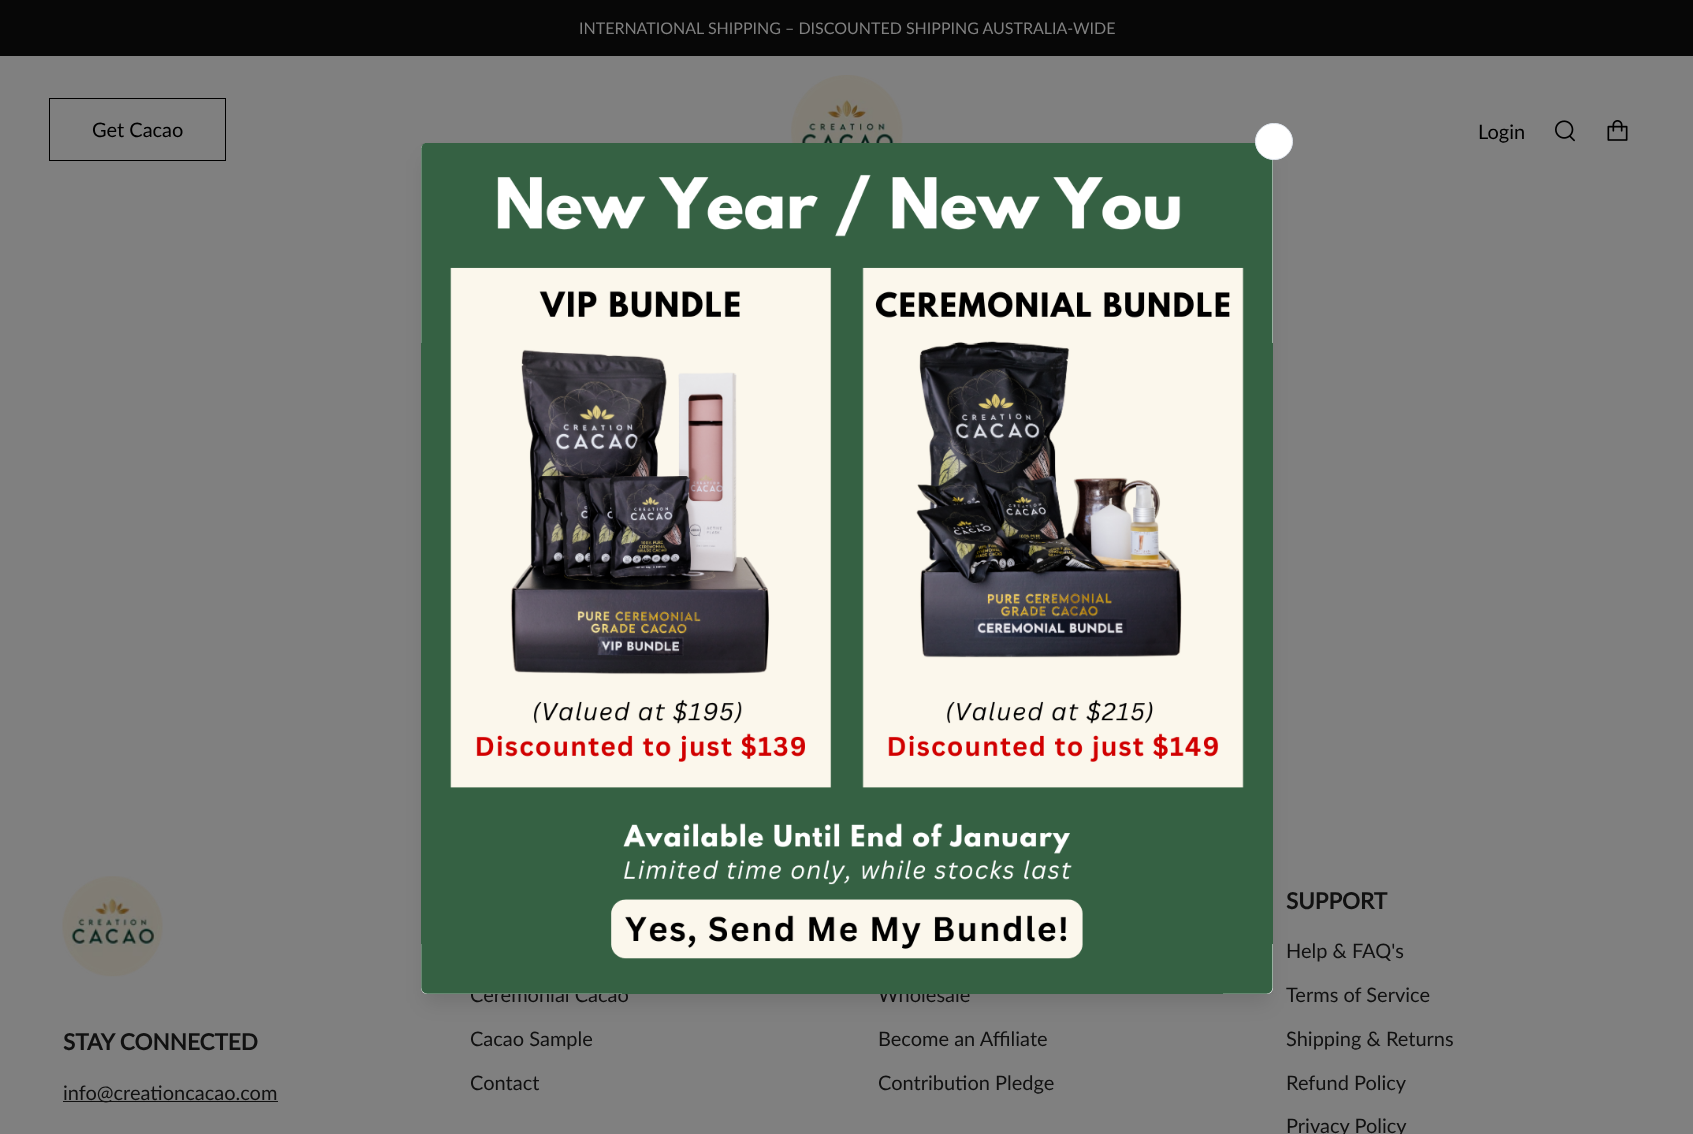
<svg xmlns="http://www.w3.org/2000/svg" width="1693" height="1134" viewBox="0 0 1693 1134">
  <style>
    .t1 { font: 16px Lato; fill: #808080; }
    .t2 { font: 20px Lato; fill: #000; }
    .t3 { font: 20px Lato; fill: #111; }
    .t4 { font: bold 22.5px Lato; fill: #111; }
  </style>
  <defs>
    <clipPath id="clip1"><rect x="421" y="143" width="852" height="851"/></clipPath>
  </defs>
  <rect width="100%" height="100%" fill="#808080"/>
  <rect x="0" y="0" width="1693" height="56" fill="#070707"/>
  <text x="579" y="34" class="t1">INTERNATIONAL SHIPPING – DISCOUNTED SHIPPING AUSTRALIA-WIDE</text>
  <rect x="49.5" y="98.5" width="176" height="62" fill="none" stroke="#000"/>
  <text x="92" y="137" class="t2">Get Cacao</text>
  <image x="791" y="75" width="112" height="68" href="images/1.png"/>
  <text x="1478" y="139" class="t2">Login</text>
  <image x="1555" y="120" width="20" height="22" href="images/2.png"/>
  <image x="1607" y="120" width="21" height="21" href="images/3.png"/>
  <rect x="425" y="159" width="844" height="844" rx="2.5" fill="#0000001a" filter="blur(9.5px)"/>
  <g clip-path="url(#clip1)">
    <rect x="425" y="146" width="844" height="844" rx="2.5" fill="#0000001f" filter="blur(12.5px)"/>
  </g>
  <text x="470" y="1002" class="t3">Ceremonial Cacao</text>
  <text x="878" y="1002" class="t3">Wholesale</text>
  <rect x="421" y="143" width="852" height="851" rx="6" fill="#fff"/>
  <image x="421" y="143" width="852" height="851" href="images/4.png"/>
  <rect x="1255.5" y="123.5" width="37" height="36" rx="18" fill="#fff" stroke="#e2e8f0"/>
  <image x="62" y="876" width="101" height="101" href="images/5.png"/>
  <text x="63" y="1050" class="t4">STAY CONNECTED</text>
  <rect x="63" y="1101" width="215" height="1" fill="#111"/>
  <text x="63" y="1100" class="t3">info@creationcacao.com</text>
  <text x="470" y="1046" class="t3">Cacao Sample</text>
  <text x="470" y="1090" class="t3">Contact</text>
  <text x="878" y="1046" class="t3">Become an Affiliate</text>
  <text x="878" y="1090" class="t3">Contribution Pledge</text>
  <text x="1286" y="909" class="t4">SUPPORT</text>
  <text x="1286" y="958" class="t3">Help &amp; FAQ's</text>
  <text x="1286" y="1002" class="t3">Terms of Service</text>
  <text x="1286" y="1046" class="t3">Shipping &amp; Returns</text>
  <text x="1286" y="1090" class="t3">Refund Policy</text>
  <text x="1286" y="1133" class="t3">Privacy Policy</text>
</svg>
